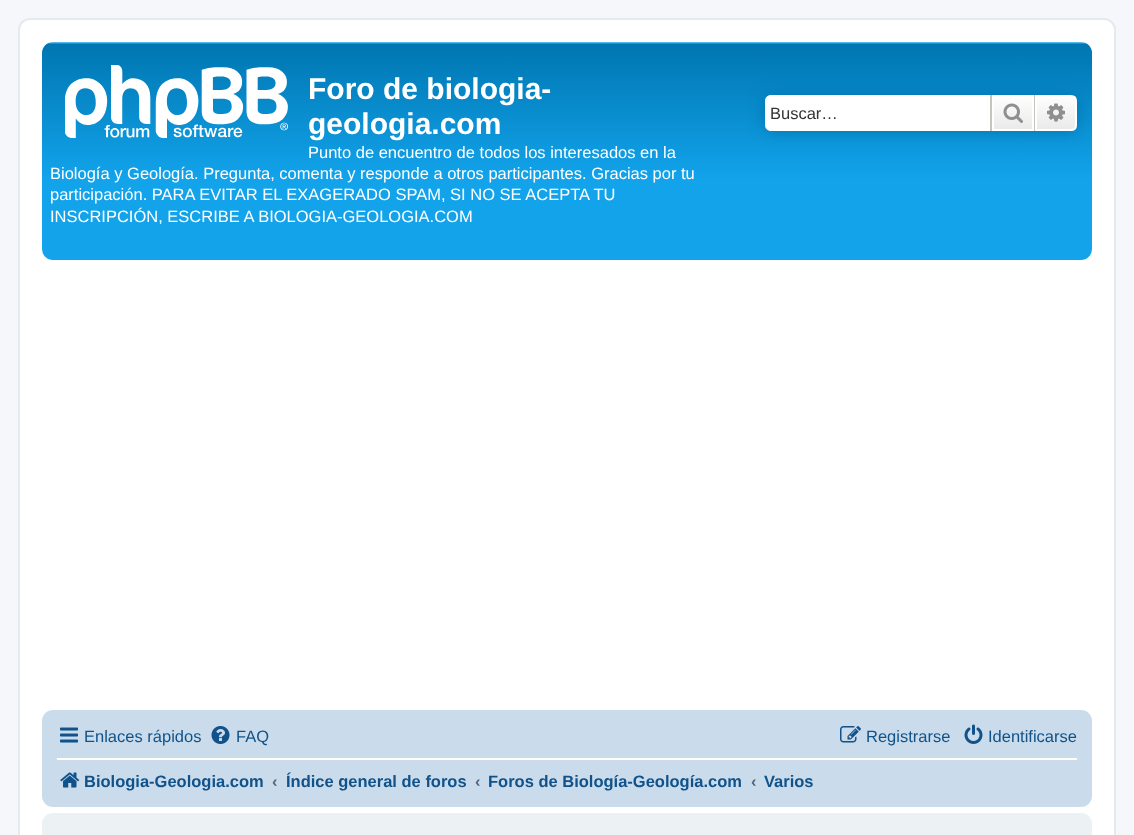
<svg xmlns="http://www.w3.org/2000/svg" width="1134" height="835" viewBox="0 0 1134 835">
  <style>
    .t1 { font: bold 30px Liberation Sans; fill: #fff; }
    .t2 { font: 16.5px Liberation Sans; fill: #fff; }
    .t3 { font: 16.5px Liberation Sans; fill: #333; }
    .t4 { font: 16.5px Liberation Sans; fill: #105289; }
    .t5 { font: bold 16.5px Liberation Sans; fill: #105289; }
    .t6 { font: bold 16.5px Liberation Sans; fill: #536482; }
  </style>
  <defs>
    <linearGradient id="g1" gradientUnits="userSpaceOnUse" x1="567" y1="42" x2="567" y2="260"><stop offset="0" stop-color="#6aceff"/><stop offset="0.01" stop-color="#0076b1"/><stop offset="0.63" stop-color="#12a3eb"/><stop offset="1" stop-color="#12a3eb"/></linearGradient>
    <linearGradient id="g2" gradientUnits="userSpaceOnUse" x1="1013" y1="95" x2="1013" y2="131"><stop offset="0" stop-color="#fff"/><stop offset="1" stop-color="#e9e9e9"/></linearGradient>
    <linearGradient id="g3" gradientUnits="userSpaceOnUse" x1="1056" y1="95" x2="1056" y2="131"><stop offset="0" stop-color="#fff"/><stop offset="1" stop-color="#e9e9e9"/></linearGradient>
  </defs>
  <rect width="100%" height="100%" fill="#f5f7fa"/>
  <rect x="19" y="19" width="1096" height="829" rx="11" fill="#fff" stroke="#e6e9ed" stroke-width="2"/>
  <rect x="42" y="42" width="1050" height="218" rx="11" fill="url(#g1)"/>
  <image x="65" y="65" width="223" height="73" href="images/1.png"/>
  <text x="308" y="99" class="t1">Foro de biologia-</text>
  <text x="308" y="134" class="t1">geologia.com</text>
  <text x="308" y="158" class="t2">Punto de encuentro de todos los interesados en la</text>
  <text x="50" y="179" class="t2">Biología y Geología. Pregunta, comenta y responde a otros participantes. Gracias por tu</text>
  <text x="50" y="200" class="t2">participación. PARA EVITAR EL EXAGERADO SPAM, SI NO SE ACEPTA TU</text>
  <text x="50" y="222" class="t2">INSCRIPCIÓN, ESCRIBE A BIOLOGIA-GEOLOGIA.COM</text>
  <rect x="765" y="95" width="312" height="36" rx="6" fill="#0075b0" filter="blur(7.5px)"/>
  <path d="M771 95H990V131H771C767.5 131 765 128.5 765 125V101C765 97.5 767.5 95 771 95Z" fill="#fff"/>
  <text x="770" y="119" class="t3">Buscar…</text>
  <rect x="994" y="97" width="38" height="32" fill="url(#g2)"/>
  <rect x="993" y="96" width="40" height="34" fill="none" stroke="#fff" stroke-width="2"/>
  <rect x="1034" y="95" width="1" height="36" fill="#c7c3bf"/>
  <rect x="990" y="95" width="2" height="36" fill="#c7c3bf"/>
  <image x="1003" y="103" width="20" height="20" href="images/2.png"/>
  <path d="M1036 96H1071C1074 96 1076 98 1076 101V125C1076 128 1074 130 1071 130H1036Z" fill="url(#g3)" stroke="#fff" stroke-width="2"/>
  <image x="1047" y="103" width="18" height="19" href="images/3.png"/>
  <rect x="42" y="710" width="1050" height="97" rx="11" fill="#cadceb"/>
  <image x="60" y="727" width="18" height="16" href="images/4.png"/>
  <text x="84" y="742" class="t4">Enlaces rápidos</text>
  <image x="211" y="726" width="19" height="18" href="images/5.png"/>
  <text x="236" y="742" class="t4">FAQ</text>
  <image x="840" y="726" width="21" height="17" href="images/6.png"/>
  <text x="866" y="742" class="t4">Registrarse</text>
  <image x="964" y="724" width="19" height="20" href="images/7.png"/>
  <text x="988" y="742" class="t4">Identificarse</text>
  <rect x="57" y="758" width="1020" height="2" fill="#fff"/>
  <image x="60" y="772" width="20" height="16" href="images/8.png"/>
  <text x="84" y="787" class="t5">Biologia-Geologia.com</text>
  <text x="272" y="787" class="t6">‹</text>
  <text x="286" y="787" class="t5">Índice general de foros</text>
  <text x="475" y="787" class="t6">‹</text>
  <text x="488" y="787" class="t5">Foros de Biología-Geología.com</text>
  <text x="751" y="787" class="t6">‹</text>
  <text x="764" y="787" class="t5">Varios</text>
  <rect x="42" y="813" width="1050" height="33" rx="11" fill="#ecf1f3"/>
</svg>
